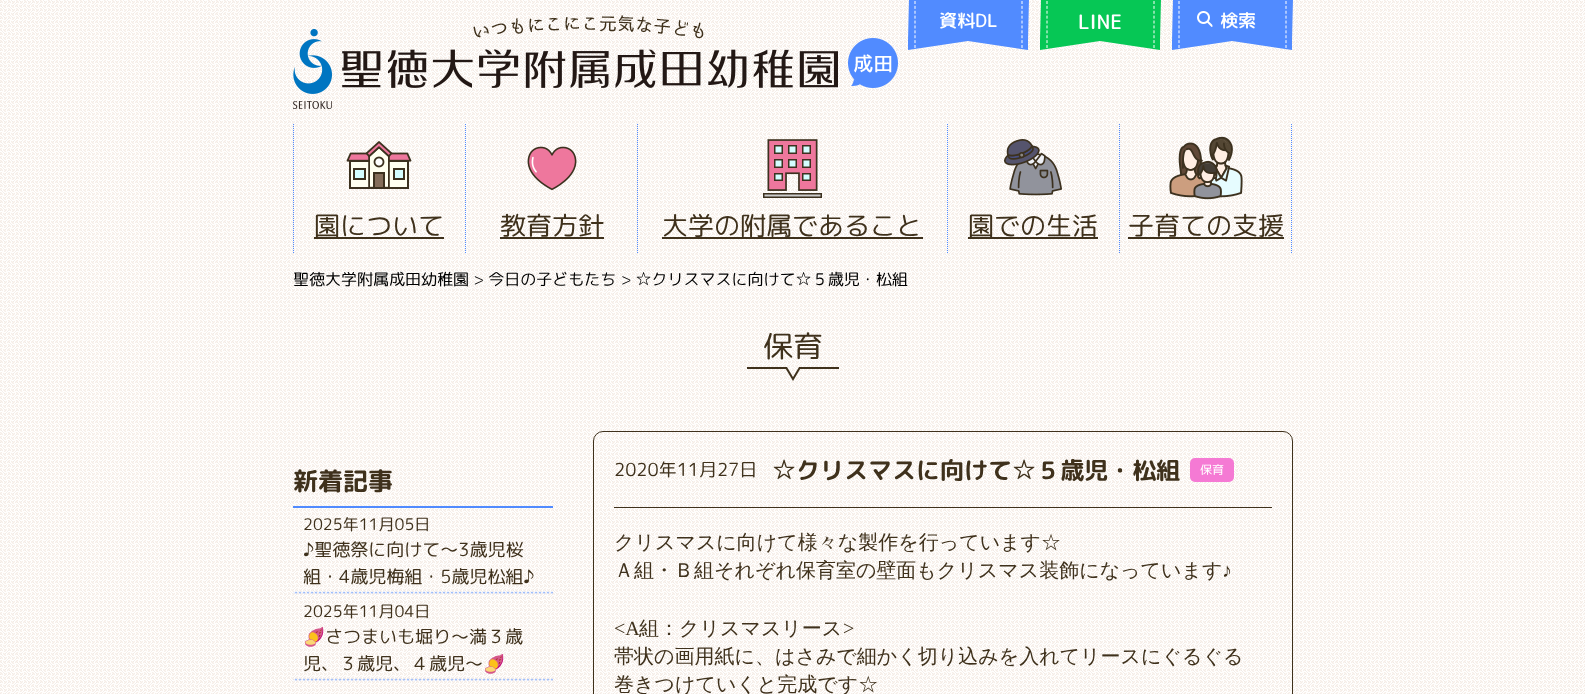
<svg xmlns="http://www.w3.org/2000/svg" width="1585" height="694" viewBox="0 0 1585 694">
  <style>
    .t1 { font: 500 18px 'Rounded Mplus 1c'; fill: #fff; }
    .t2 { font: 500 20px 'Rounded Mplus 1c'; fill: #fff; }
    .t3 { font: 26px 'Rounded Mplus 1c'; fill: #3f311c; }
    .t4 { font: 16px 'Rounded Mplus 1c'; fill: #000; }
    .t5 { font: 30px 'Rounded Mplus 1c'; fill: #3f311c; }
    .t6 { font: bold 25px 'Rounded Mplus 1c Bold'; fill: #3f311c; }
    .t7 { font: 16px 'Rounded Mplus 1c'; fill: #3f311c; }
    .t8 { font: 18px 'Rounded Mplus 1c'; fill: #3f311c; }
    .t9 { font: 18px Noto Color Emoji; fill: #3f311c; }
    .t10 { font: bold 24px 'Rounded Mplus 1c Bold'; fill: #3f311c; }
    .t11 { font: 12px 'Rounded Mplus 1c'; fill: #fff; }
    .t12 { font: 500 20px WenQuanYi Zen Hei; fill: #3f311c; }
    .t13 { font: 20px Liberation Serif; fill: #3f311c; }
  </style>
  <rect width="100%" height="100%" fill="#fff"/>
  <image x="0" y="0" width="1585" height="694" href="images/1.png"/>
  <image x="293" y="15" width="605" height="94" href="images/2.png"/>
  <path d="M909-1H1029L1028 41H908Z" fill="#518bff"/>
  <path d="M908 50V41H968Z" fill="#518bff"/>
  <path d="M915 1V48" fill="none" stroke="#fff" stroke-dasharray="3 1.89"/>
  <text x="939" y="27" class="t1">資料DL</text>
  <path d="M1028 41V50L968 41Z" fill="#518bff"/>
  <path d="M1022 1V48" fill="none" stroke="#fff" stroke-dasharray="3 1.89"/>
  <path d="M1041-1H1161L1160 41H1040Z" fill="#06c755"/>
  <path d="M1040 50V41H1100Z" fill="#06c755"/>
  <path d="M1047 1V48" fill="none" stroke="#fff" stroke-dasharray="3 1.89"/>
  <text x="1078" y="29" class="t2">LINE</text>
  <path d="M1160 41V50L1100 41Z" fill="#06c755"/>
  <path d="M1154 1V48" fill="none" stroke="#fff" stroke-dasharray="3 1.89"/>
  <path d="M1173-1H1293L1292 41H1172Z" fill="#518bff"/>
  <path d="M1172 50V41H1232Z" fill="#518bff"/>
  <path d="M1179 1V48" fill="none" stroke="#fff" stroke-dasharray="3 1.89"/>
  <image x="1197" y="11" width="16" height="16" href="images/3.png"/>
  <text x="1220" y="27" class="t1">検索</text>
  <path d="M1292 41V50L1232 41Z" fill="#518bff"/>
  <path d="M1286 1V48" fill="none" stroke="#fff" stroke-dasharray="3 1.89"/>
  <path d="M293.5 124V253" fill="none" stroke="#518bff" stroke-dasharray="1 1"/>
  <image x="346" y="141" width="66" height="48" href="images/4.png"/>
  <rect x="314" y="237" width="130" height="2" fill="#3f311c"/>
  <text x="314" y="235" class="t3">園について</text>
  <path d="M465.5 124V253" fill="none" stroke="#518bff" stroke-dasharray="1 1"/>
  <image x="527" y="146" width="50" height="45" href="images/5.png"/>
  <rect x="500" y="237" width="104" height="2" fill="#3f311c"/>
  <text x="500" y="235" class="t3">教育方針</text>
  <path d="M637.5 124V253" fill="none" stroke="#518bff" stroke-dasharray="1 1"/>
  <image x="763" y="139" width="59" height="59" href="images/6.png"/>
  <rect x="662" y="237" width="261" height="2" fill="#3f311c"/>
  <text x="662" y="235" class="t3">大学の附属であること</text>
  <path d="M947.5 124V253" fill="none" stroke="#518bff" stroke-dasharray="1 1"/>
  <image x="1004" y="139" width="58" height="57" href="images/7.png"/>
  <rect x="968" y="237" width="130" height="2" fill="#3f311c"/>
  <text x="968" y="235" class="t3">園での生活</text>
  <path d="M1291.5 124V253" fill="none" stroke="#518bff" stroke-dasharray="1 1"/>
  <path d="M1119.5 124V253" fill="none" stroke="#518bff" stroke-dasharray="1 1"/>
  <image x="1169" y="136" width="74" height="64" href="images/8.png"/>
  <text x="1128" y="235" class="t3">子育ての支援</text>
  <rect x="1128" y="237" width="156" height="2" fill="#3f311c"/>
  <text x="293" y="285" class="t4">聖徳大学附属成田幼稚園 &gt; 今日の子どもたち &gt; ☆クリスマスに向けて☆５歳児・松組</text>
  <image x="747" y="367" width="92" height="14" href="images/9.png"/>
  <text x="763" y="357" class="t5">保育</text>
  <rect x="293" y="506" width="260" height="2" fill="#518bff"/>
  <text x="293" y="490" class="t6">新着記事</text>
  <image x="293" y="591" width="260" height="3" href="images/10.png"/>
  <text x="303" y="530" class="t7">2025年11月05日</text>
  <text x="303" y="556" class="t8">♪聖徳祭に向けて～3歳児桜</text>
  <text x="303" y="583" class="t8">組・4歳児梅組・5歳児松組♪</text>
  <image x="293" y="678" width="260" height="3" href="images/11.png"/>
  <text x="303" y="617" class="t7">2025年11月04日</text>
  <text x="303" y="643" class="t9">🍠</text>
  <text x="325" y="643" class="t8">さつまいも堀り～満３歳</text>
  <text x="303" y="670" class="t8">児、３歳児、４歳児～</text>
  <text x="483" y="670" class="t9">🍠</text>
  <rect x="593.5" y="431.5" width="699" height="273" rx="9.5" fill="none" stroke="#3f311c"/>
  <rect x="614" y="507" width="658" height="1" fill="#3f311c"/>
  <text x="614" y="476" class="t8">2020年11月27日</text>
  <text x="772" y="479" class="t10">☆クリスマスに向けて☆５歳児・松組</text>
  <rect x="1190" y="458" width="44" height="24" rx="5" fill="#f57ad4"/>
  <text x="1200" y="474" class="t11">保育</text>
  <text x="614" y="549" class="t12">クリスマスに向けて様々な製作を行っています☆</text>
  <text x="614" y="577" class="t12">Ａ組・Ｂ組それぞれ保育室の壁面もクリスマス装飾になっています</text>
  <text x="1222" y="577" class="t13">♪</text>
  <text x="614" y="635" class="t13">&lt;A</text>
  <text x="639" y="635" class="t12">組：クリスマスリース</text>
  <text x="843" y="635" class="t13">&gt;</text>
  <text x="614" y="663" class="t12">帯状の画用紙に、はさみで細かく切り込みを入れてリースにぐるぐる</text>
  <text x="614" y="691" class="t12">巻きつけていくと完成です☆</text>
</svg>
